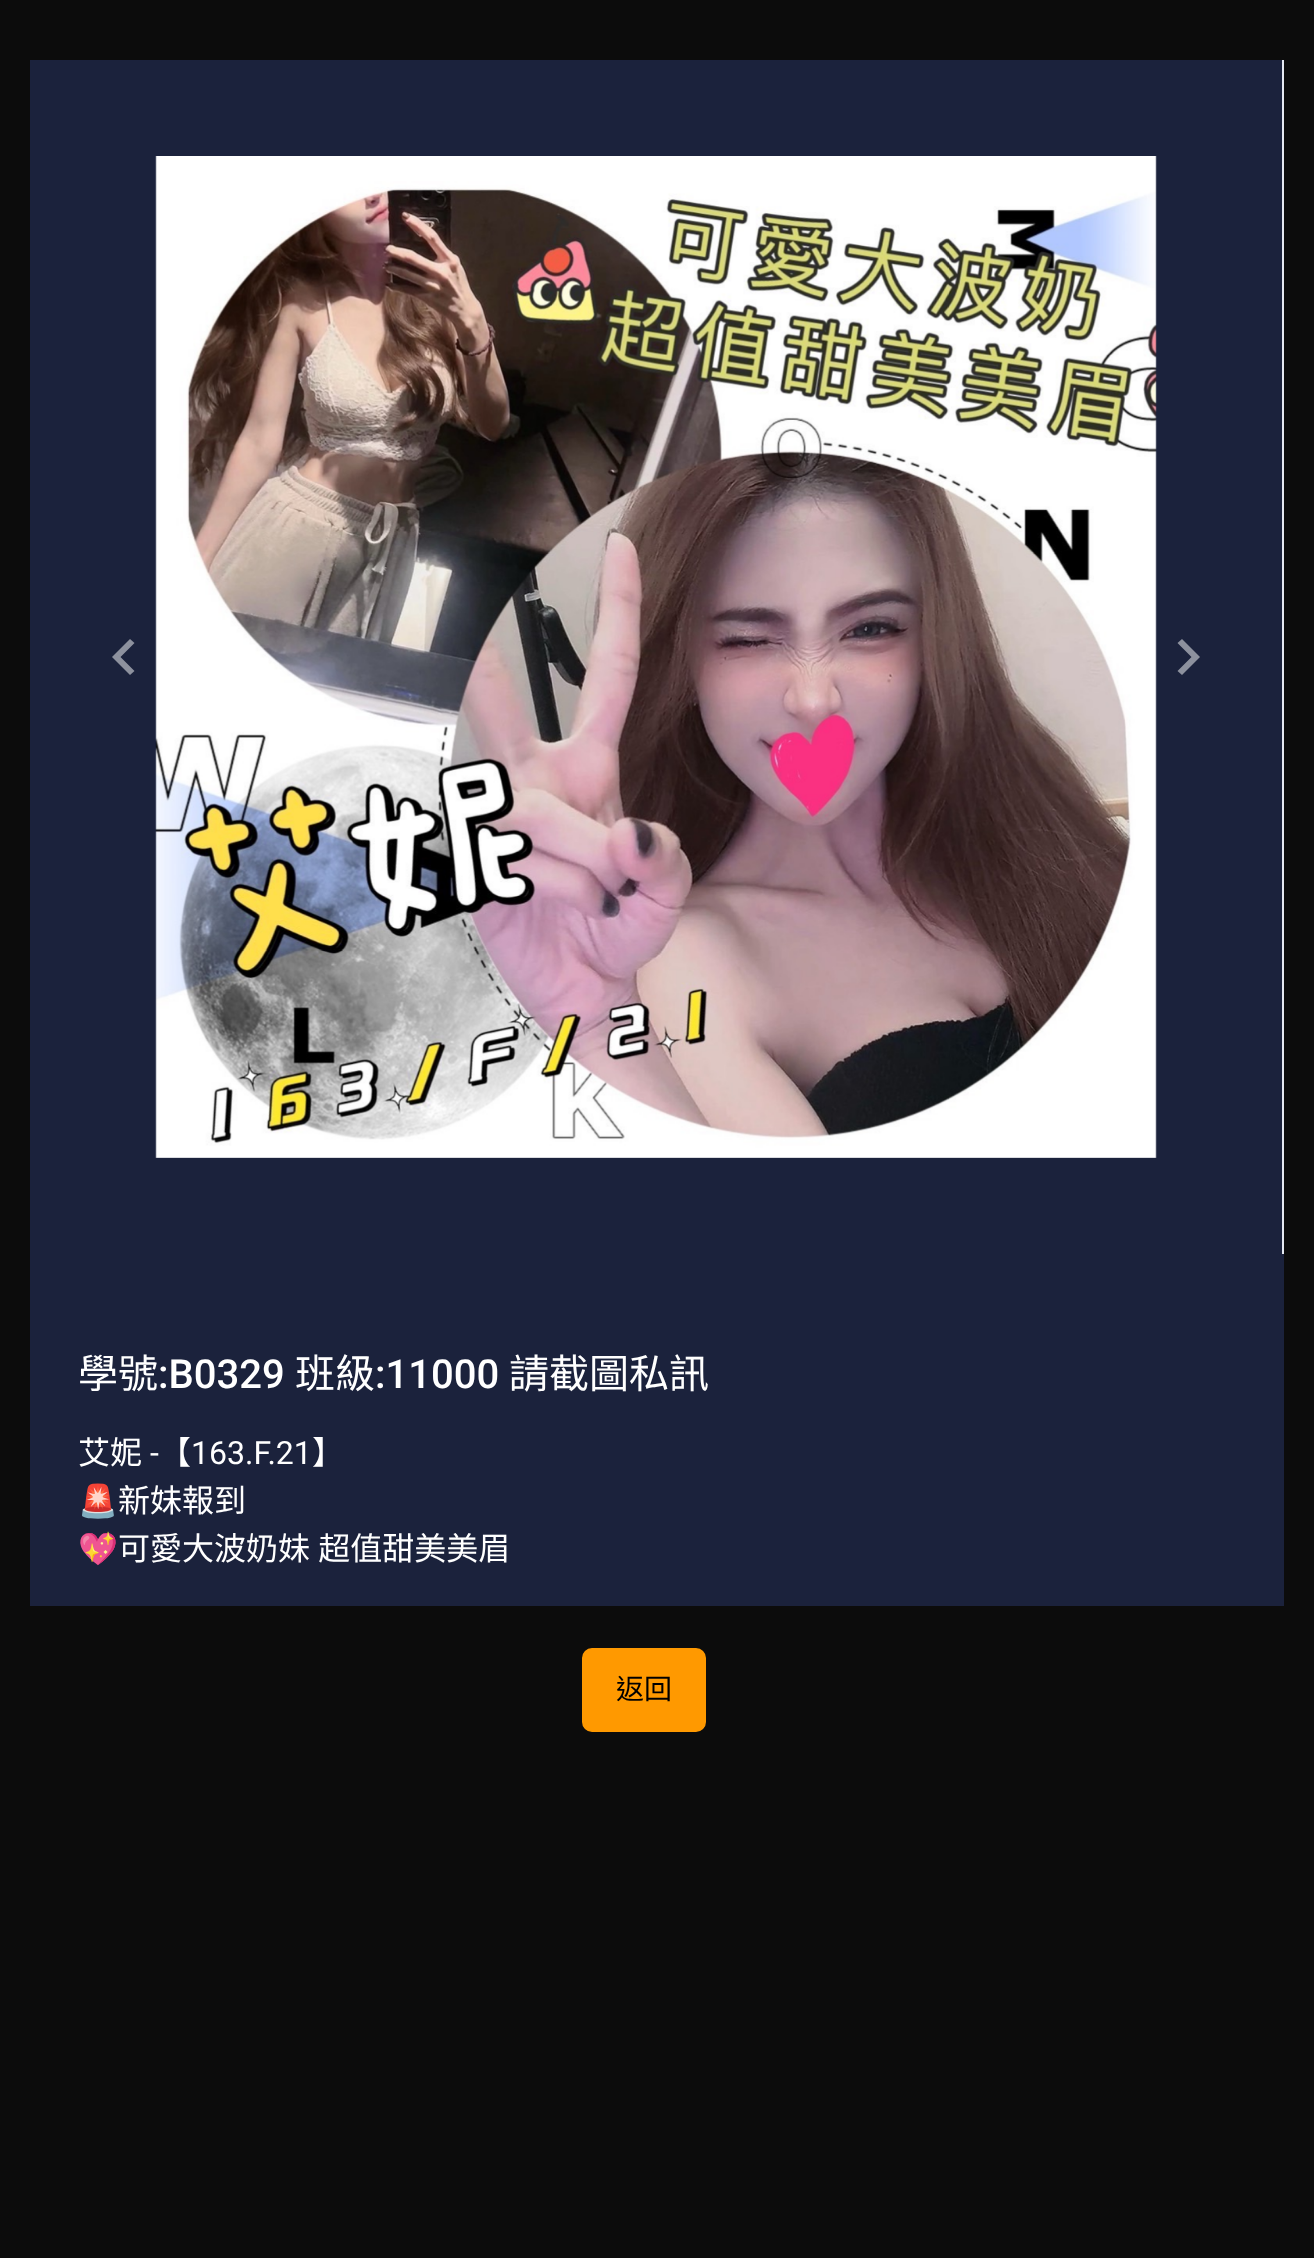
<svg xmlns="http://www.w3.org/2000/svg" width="1314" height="2258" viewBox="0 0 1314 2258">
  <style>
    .t1 { font: 40px Noto Sans CJK TC; fill: #fff; }
    .t2 { font: 500 40px Roboto; fill: #fff; }
    .t3 { font: 32px Noto Sans CJK TC; fill: #fff; }
    .t4 { font: 32px Roboto; fill: #fff; }
    .t5 { font: 32px Noto Color Emoji; fill: #fff; }
    .t6 { font: 28px Noto Sans CJK TC; fill: #000; }
  </style>
  <rect width="100%" height="100%" fill="#0c0c0c"/>
  <rect x="30" y="60" width="1254" height="1546" fill="#1b223c"/>
  <rect x="1282" y="60" width="2" height="1194" fill="#e5e9f2"/>
  <path d="M134.5 671L120.5 657L134.5 643L130 639L112 657L130 675Z" fill="#8d919e"/>
  <image x="155" y="156" width="1002" height="1002" href="images/1.png"/>
  <path d="M1177.5 671L1191.5 657L1177.5 643L1182 639L1200 657L1182 675Z" fill="#8d919e"/>
  <text x="78" y="1388" class="t1">學號</text>
  <text x="158" y="1388" class="t2">:B0329</text>
  <text x="295" y="1388" class="t1">班級</text>
  <text x="375" y="1388" class="t2">:11000</text>
  <text x="509" y="1388" class="t1">請截圖私訊</text>
  <text x="78" y="1464" class="t3">艾妮</text>
  <text x="150" y="1464" class="t4">-</text>
  <text x="159" y="1464" class="t3">【</text>
  <text x="191" y="1464" class="t4">163.F.21</text>
  <text x="312" y="1464" class="t3">】</text>
  <text x="78" y="1512" class="t5">🚨</text>
  <text x="118" y="1512" class="t3">新妹報到</text>
  <text x="78" y="1560" class="t5">💖</text>
  <text x="118" y="1560" word-spacing="1" class="t3">可愛大波奶妹 超值甜美美眉</text>
  <rect x="583" y="1649" width="122" height="82" rx="9" fill="#f90" stroke="#f90" stroke-width="2"/>
  <text x="616" y="1699" class="t6">返回</text>
</svg>
